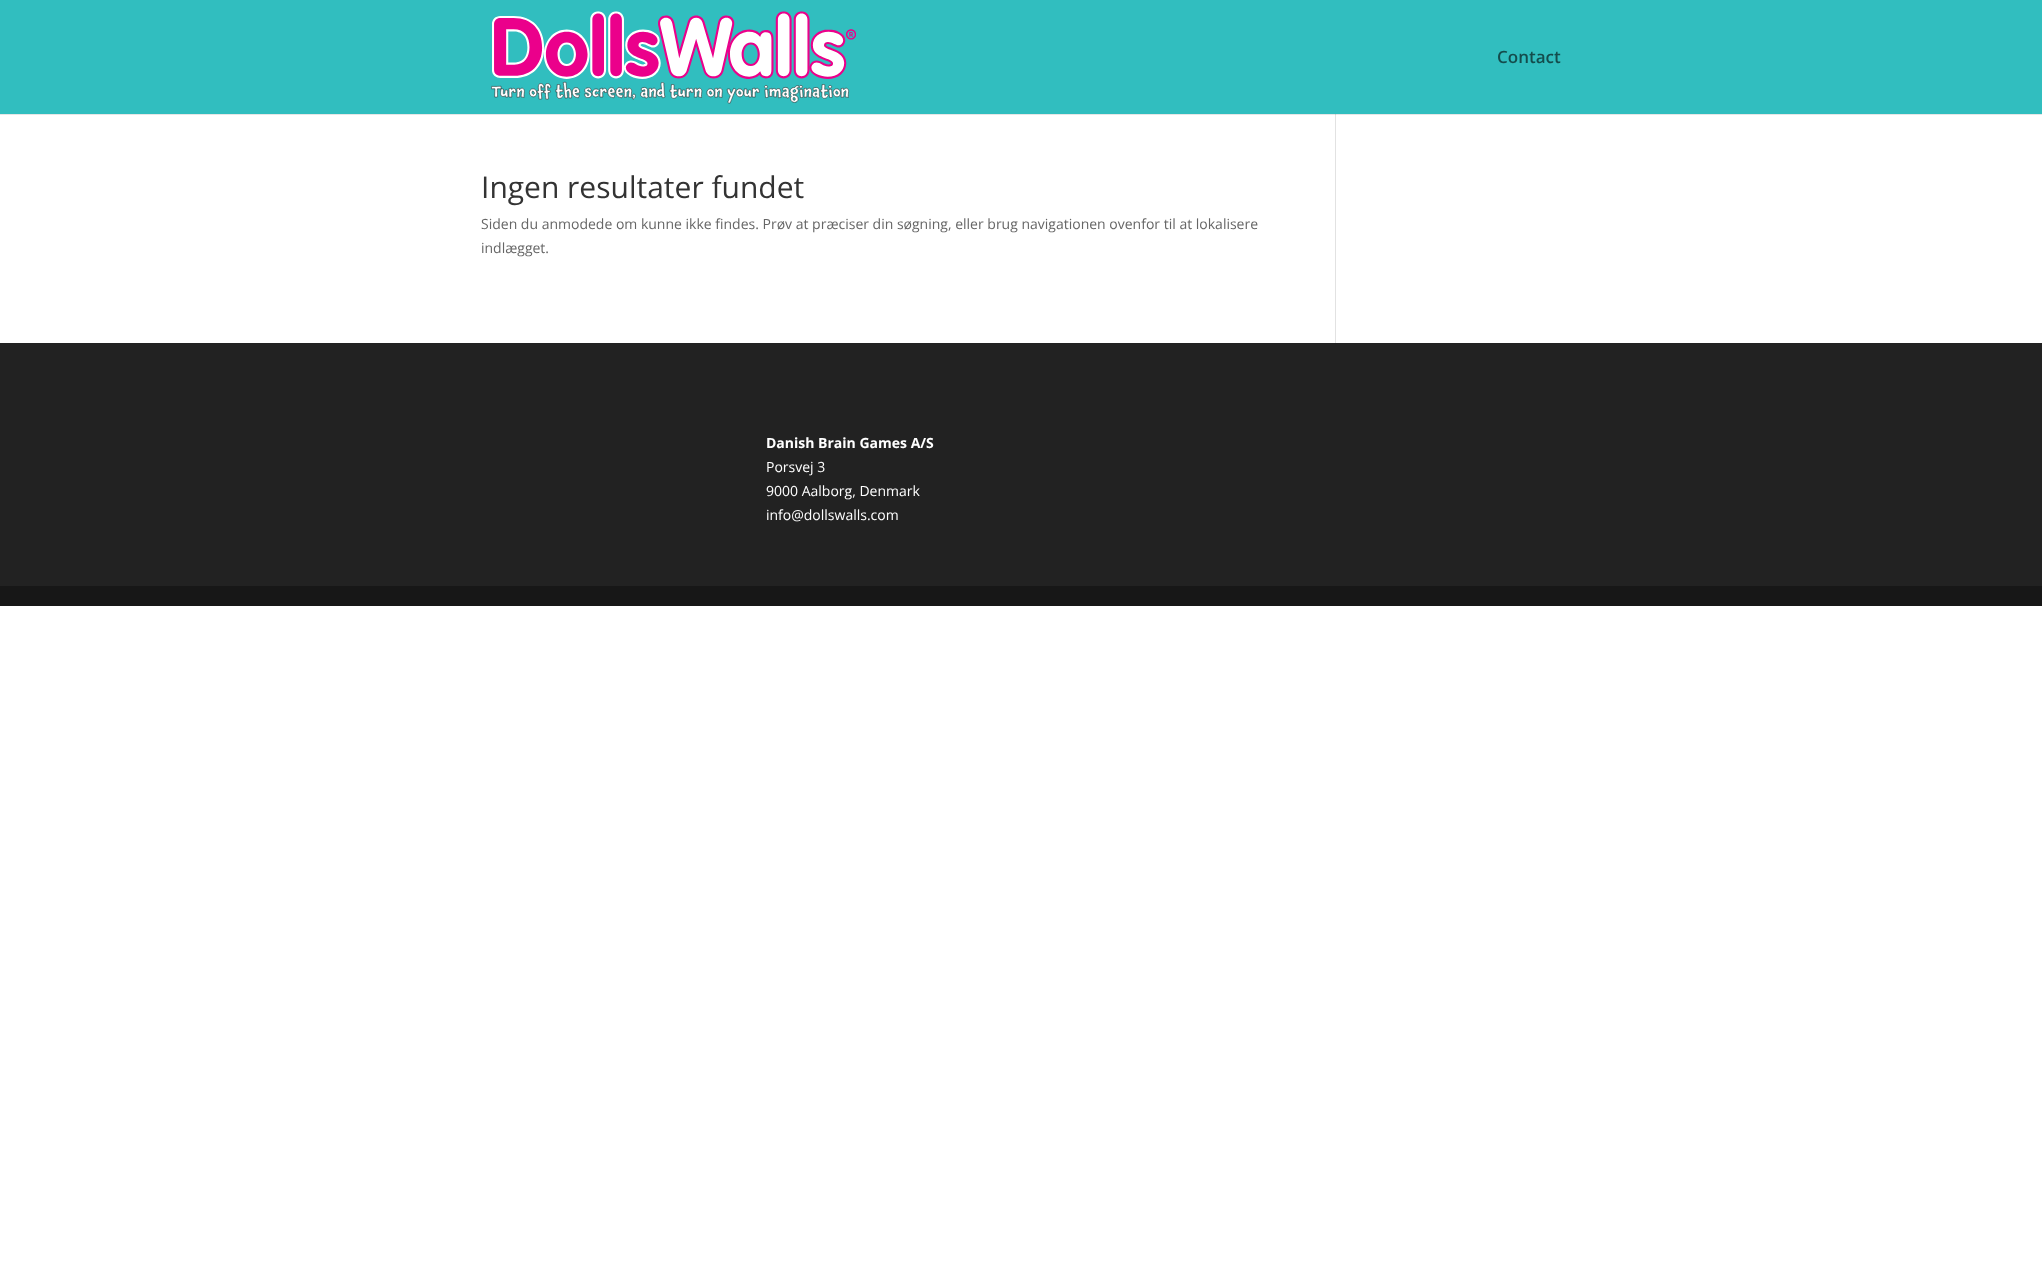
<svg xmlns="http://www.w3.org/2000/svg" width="2042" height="1282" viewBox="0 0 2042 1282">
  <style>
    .t1 { font: 600 17px Open Sans; fill: #144c4c; }
    .t2 { font: 30px Open Sans; fill: #333; }
    .t3 { font: 14px Open Sans; fill: #666; }
    .t4 { font: bold 14px Open Sans; fill: #fff; }
    .t5 { font: 14px Open Sans; fill: #fff; }
  </style>
  <rect width="100%" height="100%" fill="#fff"/>
  <rect x="0" y="114" width="2042" height="1" fill="#e6e6e6"/>
  <rect x="0" y="0" width="2042" height="114" fill="#31bebf"/>
  <image x="491" y="11" width="365" height="93" href="images/1.png"/>
  <text x="1497" y="63" class="t1">Contact</text>
  <text x="481" y="198" class="t2">Ingen resultater fundet</text>
  <text x="481" y="229" class="t3">Siden du anmodede om kunne ikke findes. Prøv at præciser din søgning, eller brug navigationen ovenfor til at lokalisere</text>
  <text x="481" y="253" class="t3">indlægget.</text>
  <rect x="1335" y="114" width="1" height="229" fill="#e2e2e2"/>
  <rect x="1335" y="114" width="1" height="1" fill="#cbcbcb"/>
  <rect x="0" y="343" width="2042" height="243" fill="#222"/>
  <text x="766" y="448" class="t4">Danish Brain Games A/S</text>
  <text x="766" y="472" class="t5">Porsvej 3</text>
  <text x="766" y="496" class="t5">9000 Aalborg, Denmark</text>
  <text x="766" y="520" class="t5">info@dollswalls.com</text>
  <rect x="0" y="586" width="2042" height="20" fill="#171717"/>
</svg>
